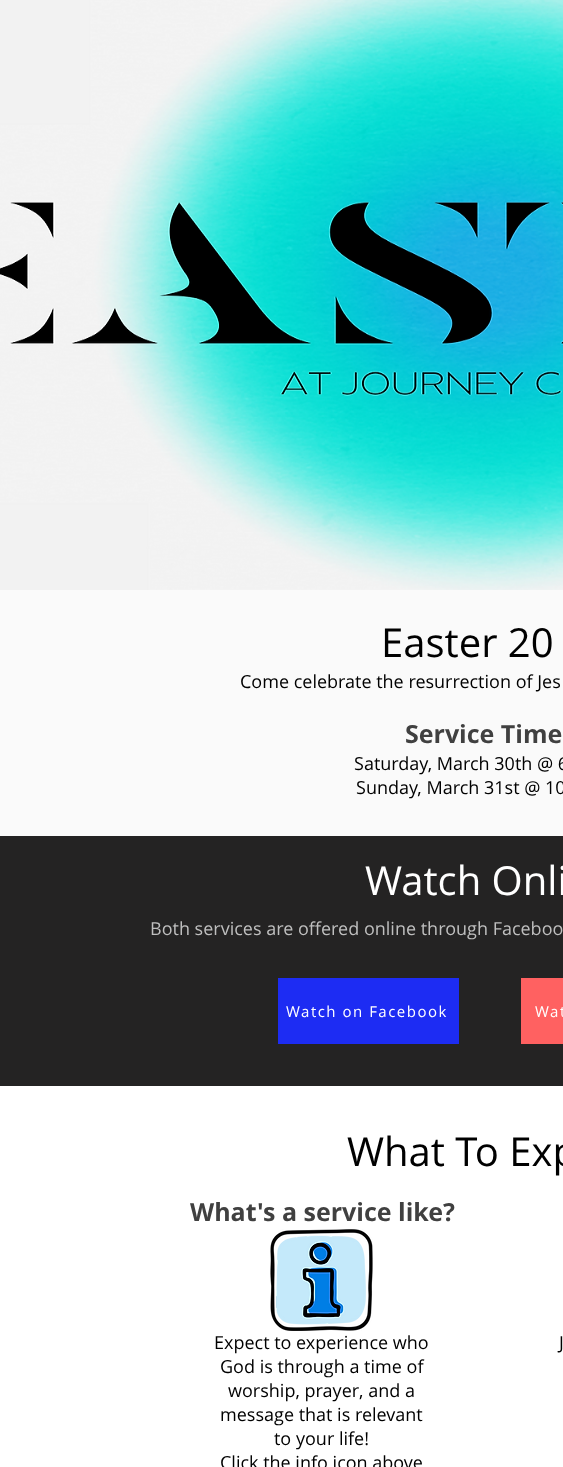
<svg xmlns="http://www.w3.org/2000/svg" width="563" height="1467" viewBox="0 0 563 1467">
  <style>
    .t1 { font: 40px Open Sans; fill: #000; }
    .t2 { font: 18px Open Sans; fill: #000; }
    .t3 { font: bold 25px Open Sans; fill: #404040; }
    .t4 { font: 40px Open Sans; fill: #fff; }
    .t5 { font: 18px Open Sans; fill: #bfbfbf; }
    .t6 { font: 15px Open Sans; letter-spacing: 1.5px; fill: #fff; }
  </style>
  <rect width="100%" height="100%" fill="#fff"/>
  <image x="0" y="0" width="563" height="590" href="images/1.png"/>
  <rect x="0" y="590" width="563" height="246" fill="#fafafa"/>
  <text x="381" y="657" class="t1">Easter 20</text>
  <text x="240" y="688" class="t2">Come celebrate the resurrection of Jes</text>
  <text x="405" y="743" class="t3">Service Time</text>
  <text x="354" y="770" class="t2">Saturday, March 30th @ 6</text>
  <text x="356" y="794" class="t2">Sunday, March 31st @ 10</text>
  <rect x="0" y="836" width="563" height="250" fill="#242323"/>
  <text x="365" y="895" class="t4">Watch Onli</text>
  <text x="150" y="935" class="t5">Both services are offered online through Faceboo</text>
  <rect x="278" y="978" width="181" height="66" fill="#1d2cf3"/>
  <text x="286" y="1017" class="t6">Watch on Facebook</text>
  <rect x="521" y="978" width="42" height="66" fill="#ff6161"/>
  <text x="535" y="1017" class="t6">Wat</text>
  <text x="347" y="1166" class="t1">What To Exp</text>
  <text x="190" y="1221" class="t3">What's a service like?</text>
  <image x="270" y="1229" width="103" height="102" href="images/2.png"/>
  <text x="214" y="1349" class="t2">Expect to experience who</text>
  <text x="220" y="1373" class="t2">God is through a time of</text>
  <text x="228" y="1397" class="t2">worship, prayer, and a</text>
  <text x="220" y="1421" class="t2">message that is relevant</text>
  <text x="274" y="1445" class="t2">to your life!</text>
  <text x="220" y="1469" class="t2">Click the info icon above</text>
  <text x="559" y="1349" class="t2">J</text>
</svg>
